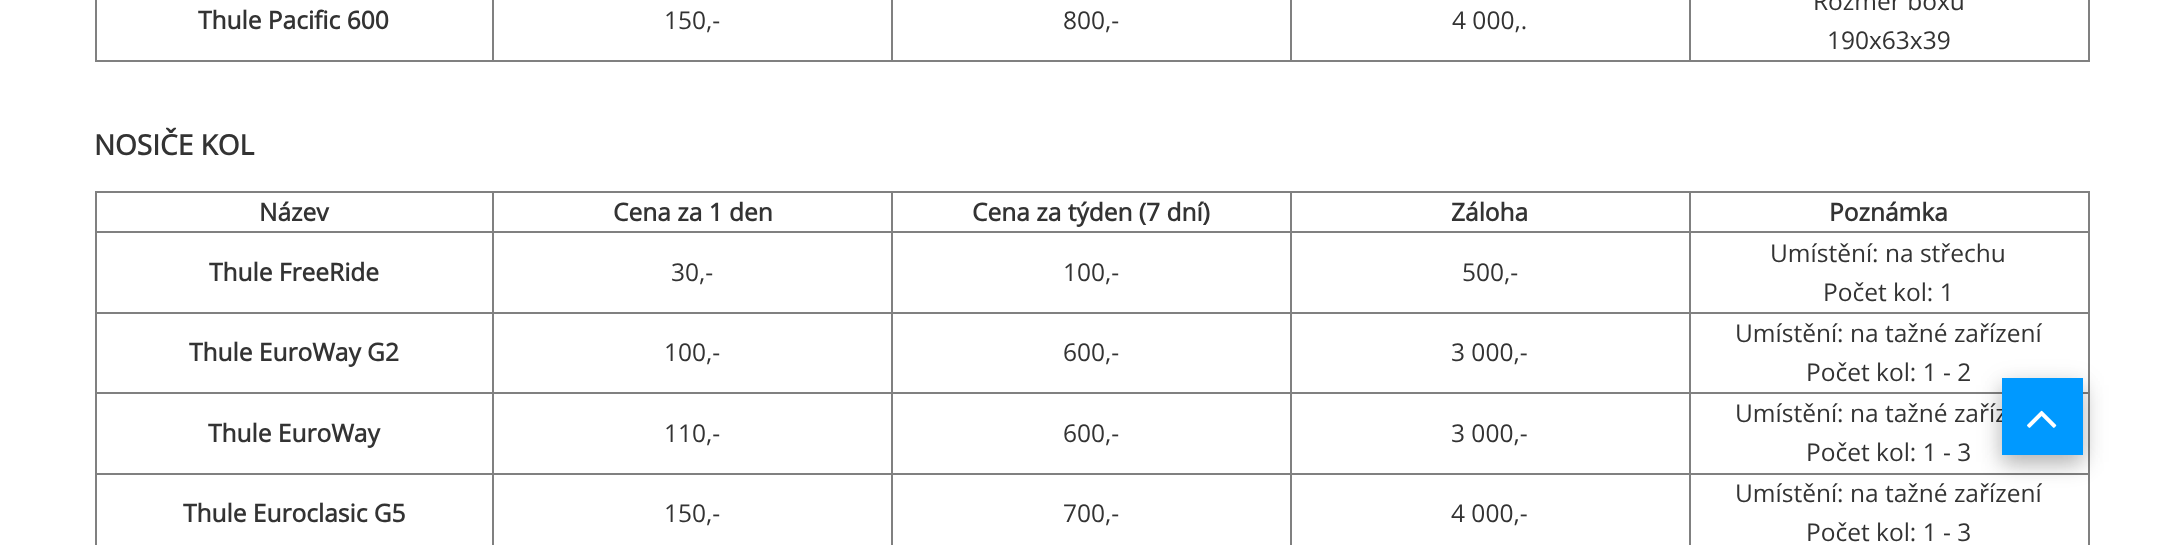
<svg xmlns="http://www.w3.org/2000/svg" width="2181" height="545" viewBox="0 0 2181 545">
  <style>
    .t1 { font: bold 24.5px Open Sans; fill: #333; }
    .t2 { font: 24.5px Open Sans; fill: #333; }
    .t3 { font: bold 28px Open Sans; fill: #333; }
  </style>
  <rect width="100%" height="100%" fill="#fff"/>
  <rect x="2088" y="0" width="2" height="61" fill="#808080"/>
  <rect x="95" y="60" width="1995" height="2" fill="#808080"/>
  <rect x="95" y="0" width="2" height="61" fill="#808080"/>
  <text x="198" y="29" class="t1">Thule Pacific 600</text>
  <rect x="492" y="0" width="2" height="61" fill="#808080"/>
  <text x="664" y="29" class="t2">150,-</text>
  <rect x="891" y="0" width="2" height="61" fill="#808080"/>
  <text x="1063" y="29" class="t2">800,-</text>
  <rect x="1290" y="0" width="2" height="61" fill="#808080"/>
  <text x="1452" y="29" class="t2">4 000,.</text>
  <rect x="1689" y="0" width="2" height="61" fill="#808080"/>
  <text x="1813" y="10" class="t2">Rozměr boxu</text>
  <text x="1827" y="49" class="t2">190x63x39</text>
  <text x="94" y="155" class="t3">NOSIČE KOL</text>
  <rect x="95" y="191" width="1995" height="2" fill="#808080"/>
  <rect x="2088" y="191" width="2" height="354" fill="#808080"/>
  <rect x="95" y="191" width="2" height="354" fill="#808080"/>
  <text x="259" y="221" class="t1">Název</text>
  <rect x="1689" y="231" width="401" height="2" fill="#808080"/>
  <rect x="1689" y="312" width="401" height="2" fill="#808080"/>
  <rect x="1689" y="392" width="401" height="2" fill="#808080"/>
  <rect x="1689" y="473" width="401" height="2" fill="#808080"/>
  <rect x="1689" y="473" width="2" height="72" fill="#808080"/>
  <rect x="1290" y="473" width="401" height="2" fill="#808080"/>
  <rect x="1689" y="392" width="2" height="82" fill="#808080"/>
  <rect x="1290" y="392" width="401" height="2" fill="#808080"/>
  <rect x="1689" y="312" width="2" height="82" fill="#808080"/>
  <rect x="1290" y="312" width="401" height="2" fill="#808080"/>
  <rect x="1689" y="231" width="2" height="82" fill="#808080"/>
  <rect x="1290" y="231" width="401" height="2" fill="#808080"/>
  <rect x="1290" y="473" width="2" height="72" fill="#808080"/>
  <rect x="891" y="473" width="401" height="2" fill="#808080"/>
  <rect x="1290" y="392" width="2" height="82" fill="#808080"/>
  <rect x="891" y="392" width="401" height="2" fill="#808080"/>
  <rect x="1290" y="312" width="2" height="82" fill="#808080"/>
  <rect x="891" y="312" width="401" height="2" fill="#808080"/>
  <rect x="1290" y="231" width="2" height="82" fill="#808080"/>
  <rect x="891" y="231" width="401" height="2" fill="#808080"/>
  <rect x="891" y="473" width="2" height="72" fill="#808080"/>
  <rect x="492" y="473" width="401" height="2" fill="#808080"/>
  <rect x="891" y="392" width="2" height="82" fill="#808080"/>
  <rect x="492" y="392" width="401" height="2" fill="#808080"/>
  <rect x="891" y="312" width="2" height="82" fill="#808080"/>
  <rect x="492" y="312" width="401" height="2" fill="#808080"/>
  <rect x="891" y="231" width="2" height="82" fill="#808080"/>
  <rect x="492" y="231" width="401" height="2" fill="#808080"/>
  <rect x="492" y="473" width="2" height="72" fill="#808080"/>
  <rect x="95" y="473" width="399" height="2" fill="#808080"/>
  <rect x="492" y="392" width="2" height="82" fill="#808080"/>
  <rect x="95" y="392" width="399" height="2" fill="#808080"/>
  <rect x="492" y="312" width="2" height="82" fill="#808080"/>
  <rect x="95" y="312" width="399" height="2" fill="#808080"/>
  <rect x="492" y="231" width="2" height="82" fill="#808080"/>
  <rect x="95" y="231" width="399" height="2" fill="#808080"/>
  <rect x="492" y="191" width="2" height="42" fill="#808080"/>
  <text x="613" y="221" class="t1">Cena za 1 den</text>
  <rect x="891" y="191" width="2" height="42" fill="#808080"/>
  <text x="972" y="221" class="t1">Cena za týden (7 dní)</text>
  <rect x="1290" y="191" width="2" height="42" fill="#808080"/>
  <text x="1451" y="221" class="t1">Záloha</text>
  <rect x="1689" y="191" width="2" height="42" fill="#808080"/>
  <text x="1829" y="221" class="t1">Poznámka</text>
  <text x="209" y="281" class="t1">Thule FreeRide</text>
  <text x="671" y="281" class="t2">30,-</text>
  <text x="1063" y="281" class="t2">100,-</text>
  <text x="1462" y="281" class="t2">500,-</text>
  <text x="1770" y="262" class="t2">Umístění: na střechu</text>
  <text x="1823" y="301" class="t2">Počet kol: 1</text>
  <text x="189" y="361" class="t1">Thule EuroWay G2</text>
  <text x="664" y="361" class="t2">100,-</text>
  <text x="1063" y="361" class="t2">600,-</text>
  <text x="1451" y="361" class="t2">3 000,-</text>
  <text x="1735" y="342" class="t2">Umístění: na tažné zařízení</text>
  <text x="1806" y="381" class="t2">Počet kol: 1 - 2</text>
  <text x="208" y="442" class="t1">Thule EuroWay</text>
  <text x="664" y="442" class="t2">110,-</text>
  <text x="1063" y="442" class="t2">600,-</text>
  <text x="1451" y="442" class="t2">3 000,-</text>
  <text x="1735" y="422" class="t2">Umístění: na tažné zaříz</text>
  <text x="1806" y="461" class="t2">Počet kol: 1 - 3</text>
  <text x="183" y="522" class="t1">Thule Euroclasic G5</text>
  <text x="664" y="522" class="t2">150,-</text>
  <text x="1063" y="522" class="t2">700,-</text>
  <text x="1451" y="522" class="t2">4 000,-</text>
  <text x="1735" y="502" class="t2">Umístění: na tažné zařízení</text>
  <text x="1806" y="541" class="t2">Počet kol: 1 - 3</text>
  <rect x="2002" y="385" width="81" height="77" fill="#00000026" filter="blur(13px)"/>
  <rect x="2002" y="387" width="81" height="77" fill="#0000002e" filter="blur(9.5px)"/>
  <rect x="2002" y="378" width="81" height="77" fill="#09f"/>
  <image x="2027" y="410" width="30" height="18" href="images/1.png"/>
</svg>
